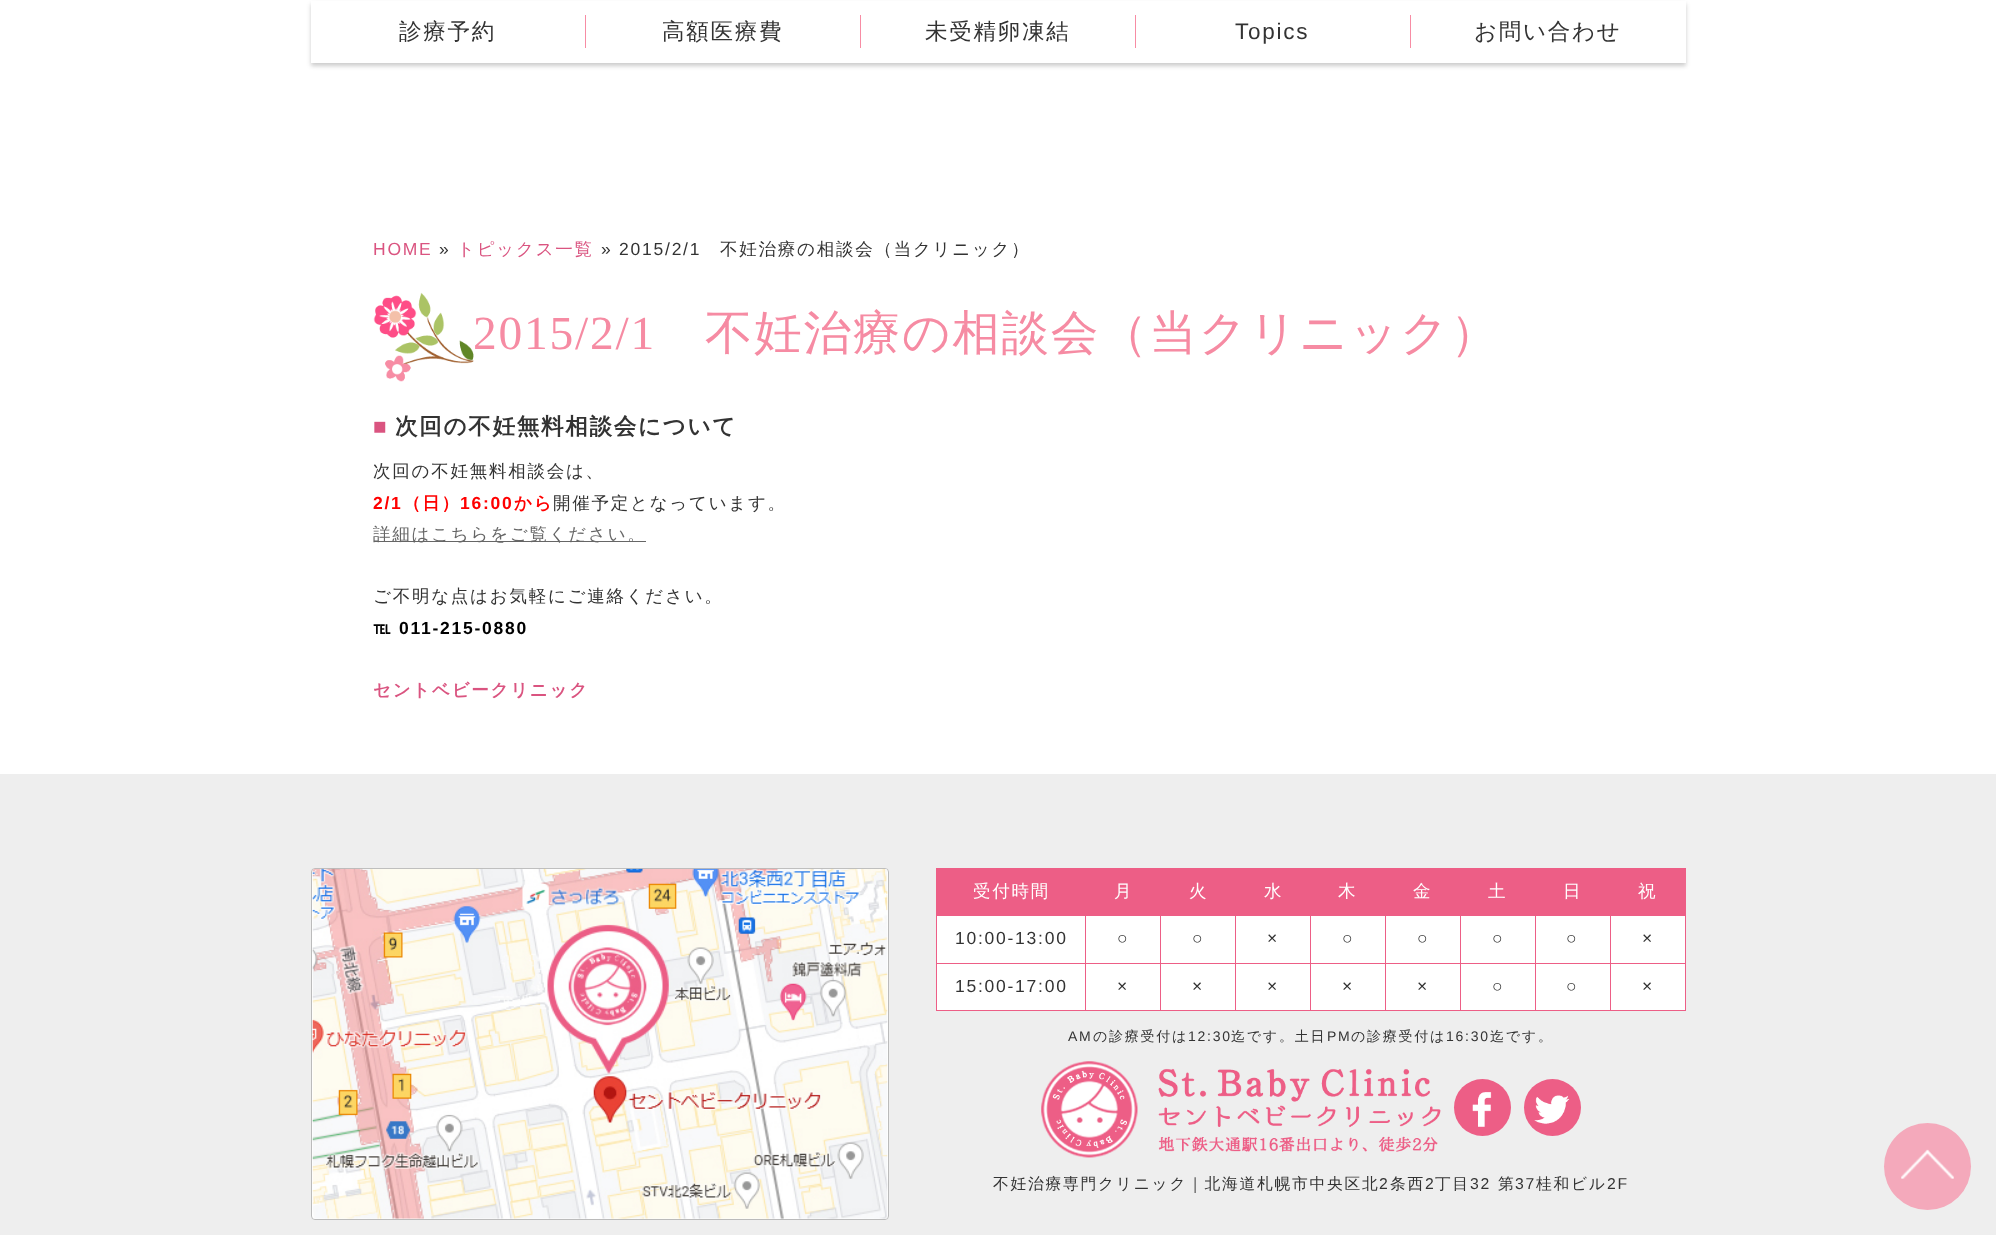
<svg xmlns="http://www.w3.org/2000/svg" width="1996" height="1235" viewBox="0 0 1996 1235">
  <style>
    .t1 { font: 500 22.5px WenQuanYi Zen Hei; letter-spacing: 1.75px; fill: #333; }
    .t2 { font: 22.5px Liberation Sans; letter-spacing: 1.75px; fill: #333; }
    .t3 { font: 17.5px Liberation Sans; letter-spacing: 1.75px; fill: #da5480; }
    .t4 { font: 17.5px Liberation Sans; letter-spacing: 1.75px; fill: #333; }
    .t5 { font: 500 17.5px WenQuanYi Zen Hei; letter-spacing: 1.75px; fill: #da5480; }
    .t6 { font: 500 17.5px WenQuanYi Zen Hei; letter-spacing: 1.75px; fill: #333; }
    .t7 { font: 47.5px Liberation Serif; letter-spacing: 1.75px; fill: #f68ba3; }
    .t8 { font: 500 47.5px WenQuanYi Zen Hei; letter-spacing: 1.75px; fill: #f68ba3; }
    .t9 { font: bold 22.5px Liberation Sans; letter-spacing: 1.75px; fill: #da5480; }
    .t10 { font: bold 22.5px WenQuanYi Zen Hei; letter-spacing: 1.75px; fill: #333; }
    .t11 { font: bold 17.5px Liberation Sans; letter-spacing: 1.75px; fill: #f00; }
    .t12 { font: bold 17.5px WenQuanYi Zen Hei; letter-spacing: 1.75px; fill: #f00; }
    .t13 { font: 500 17.5px WenQuanYi Zen Hei; letter-spacing: 1.75px; fill: #666; }
    .t14 { font: bold 17.5px WenQuanYi Zen Hei; letter-spacing: 1.75px; fill: #000; }
    .t15 { font: bold 17.5px Liberation Sans; letter-spacing: 1.75px; fill: #000; }
    .t16 { font: bold 17.5px WenQuanYi Zen Hei; letter-spacing: 1.75px; fill: #da5480; }
    .t17 { font: 500 17.5px WenQuanYi Zen Hei; letter-spacing: 1.75px; fill: #fff; }
    .t18 { font: 14px Liberation Sans; letter-spacing: 1.75px; fill: #333; }
    .t19 { font: 500 14px WenQuanYi Zen Hei; letter-spacing: 1.75px; fill: #333; }
    .t20 { font: 500 15.75px WenQuanYi Zen Hei; letter-spacing: 1.75px; fill: #333; }
    .t21 { font: 15.75px Liberation Sans; letter-spacing: 1.75px; fill: #333; }
  </style>
  <rect width="100%" height="100%" fill="#fff"/>
  <rect x="311" y="4" width="1375" height="62" fill="#00000033" filter="blur(2px)"/>
  <rect x="311" y="1" width="1375" height="62" fill="#fff"/>
  <rect x="585" y="15" width="1" height="33" fill="#f78ca4"/>
  <text x="399" y="39" class="t1">診療予約</text>
  <rect x="860" y="15" width="1" height="33" fill="#f78ca4"/>
  <text x="662" y="39" class="t1">高額医療費</text>
  <rect x="1135" y="15" width="1" height="33" fill="#f78ca4"/>
  <text x="925" y="39" class="t1">未受精卵凍結</text>
  <rect x="1410" y="15" width="1" height="33" fill="#f78ca4"/>
  <text x="1235" y="39" class="t2">Topics</text>
  <text x="1474" y="39" class="t1">お問い合わせ</text>
  <text x="373" y="255" class="t3">HOME</text>
  <text x="439" y="255" class="t4">»</text>
  <text x="457" y="255" class="t5">トピックス一覧</text>
  <text x="601" y="255" class="t4">» 2015/2/1</text>
  <text x="720" y="255" class="t6">不妊治療の相談会（当クリニック）</text>
  <image x="373" y="292" width="101" height="90" href="images/1.png"/>
  <text x="473" y="349" class="t7">2015/2/1</text>
  <text x="705" y="349" class="t8">不妊治療の相談会（当クリニック）</text>
  <text x="373" y="434" class="t9">■</text>
  <text x="395" y="434" class="t10">次回の不妊無料相談会について</text>
  <text x="373" y="477" class="t6">次回の不妊無料相談会は、</text>
  <text x="373" y="509" class="t11">2/1</text>
  <text x="403" y="509" class="t12">（日）</text>
  <text x="460" y="509" class="t11">16:00</text>
  <text x="514" y="509" class="t12">から</text>
  <text x="553" y="509" class="t6">開催予定となっています。</text>
  <rect x="374" y="541" width="272" height="1" fill="#666"/>
  <text x="373" y="540" class="t13">詳細はこちらをご覧ください。</text>
  <text x="373" y="602" class="t6">ご不明な点はお気軽にご連絡ください。</text>
  <text x="373" y="634" class="t14">℡</text>
  <text x="399" y="634" class="t15">011-215-0880</text>
  <text x="373" y="696" class="t16">セントベビークリニック</text>
  <rect x="0" y="774" width="1996" height="461" fill="#eee"/>
  <rect x="311.5" y="868.5" width="577" height="351" rx="3.5" fill="#fff" stroke="#bbb"/>
  <image x="312" y="868" width="576" height="351" href="images/2.png"/>
  <rect x="936" y="868" width="1" height="143" fill="#ed5e86"/>
  <rect x="937" y="868" width="748" height="47" fill="#ed5e86"/>
  <text x="973" y="897" class="t17">受付時間</text>
  <text x="1114" y="897" class="t17">月</text>
  <text x="1189" y="897" class="t17">火</text>
  <text x="1264" y="897" class="t17">水</text>
  <text x="1338" y="897" class="t17">木</text>
  <text x="1413" y="897" class="t17">金</text>
  <text x="1488" y="897" class="t17">土</text>
  <text x="1563" y="897" class="t17">日</text>
  <rect x="1685" y="868" width="1" height="143" fill="#ed5e86"/>
  <rect x="1610" y="1010" width="76" height="1" fill="#ed5e86"/>
  <rect x="1610" y="963" width="1" height="48" fill="#ed5e86"/>
  <rect x="1610" y="963" width="76" height="1" fill="#ed5e86"/>
  <rect x="1610" y="915" width="1" height="49" fill="#ed5e86"/>
  <rect x="1535" y="1010" width="76" height="1" fill="#ed5e86"/>
  <rect x="1535" y="963" width="1" height="48" fill="#ed5e86"/>
  <rect x="1535" y="963" width="76" height="1" fill="#ed5e86"/>
  <rect x="1535" y="915" width="1" height="49" fill="#ed5e86"/>
  <rect x="1460" y="1010" width="76" height="1" fill="#ed5e86"/>
  <rect x="1460" y="963" width="1" height="48" fill="#ed5e86"/>
  <rect x="1460" y="963" width="76" height="1" fill="#ed5e86"/>
  <rect x="1460" y="915" width="1" height="49" fill="#ed5e86"/>
  <rect x="1385" y="1010" width="76" height="1" fill="#ed5e86"/>
  <rect x="1385" y="963" width="1" height="48" fill="#ed5e86"/>
  <rect x="1385" y="963" width="76" height="1" fill="#ed5e86"/>
  <rect x="1385" y="915" width="1" height="49" fill="#ed5e86"/>
  <rect x="1310" y="1010" width="76" height="1" fill="#ed5e86"/>
  <rect x="1310" y="963" width="1" height="48" fill="#ed5e86"/>
  <rect x="1310" y="963" width="76" height="1" fill="#ed5e86"/>
  <rect x="1310" y="915" width="1" height="49" fill="#ed5e86"/>
  <rect x="1235" y="1010" width="76" height="1" fill="#ed5e86"/>
  <rect x="1235" y="963" width="1" height="48" fill="#ed5e86"/>
  <rect x="1235" y="963" width="76" height="1" fill="#ed5e86"/>
  <rect x="1235" y="915" width="1" height="49" fill="#ed5e86"/>
  <rect x="1160" y="1010" width="76" height="1" fill="#ed5e86"/>
  <rect x="1160" y="963" width="1" height="48" fill="#ed5e86"/>
  <rect x="1160" y="963" width="76" height="1" fill="#ed5e86"/>
  <rect x="1160" y="915" width="1" height="49" fill="#ed5e86"/>
  <rect x="1085" y="1010" width="76" height="1" fill="#ed5e86"/>
  <rect x="1085" y="963" width="1" height="48" fill="#ed5e86"/>
  <rect x="1085" y="963" width="76" height="1" fill="#ed5e86"/>
  <rect x="1085" y="915" width="1" height="49" fill="#ed5e86"/>
  <rect x="936" y="915" width="750" height="1" fill="#ed5e86"/>
  <text x="1638" y="897" class="t17">祝</text>
  <rect x="937" y="916" width="148" height="47" fill="#fff"/>
  <rect x="936" y="963" width="150" height="1" fill="#ed5e86"/>
  <text x="955" y="944" class="t4">10:00-13:00</text>
  <rect x="1086" y="916" width="74" height="47" fill="#fff"/>
  <text x="1117" y="944" class="t4">○</text>
  <rect x="1161" y="916" width="74" height="47" fill="#fff"/>
  <text x="1192" y="944" class="t4">○</text>
  <rect x="1236" y="916" width="74" height="47" fill="#fff"/>
  <text x="1267" y="944" class="t4">×</text>
  <rect x="1311" y="916" width="74" height="47" fill="#fff"/>
  <text x="1342" y="944" class="t4">○</text>
  <rect x="1386" y="916" width="74" height="47" fill="#fff"/>
  <text x="1417" y="944" class="t4">○</text>
  <rect x="1461" y="916" width="74" height="47" fill="#fff"/>
  <text x="1492" y="944" class="t4">○</text>
  <rect x="1536" y="916" width="74" height="47" fill="#fff"/>
  <text x="1566" y="944" class="t4">○</text>
  <rect x="1611" y="916" width="74" height="47" fill="#fff"/>
  <text x="1642" y="944" class="t4">×</text>
  <rect x="937" y="964" width="148" height="46" fill="#fff"/>
  <rect x="936" y="1010" width="150" height="1" fill="#ed5e86"/>
  <text x="955" y="992" class="t4">15:00-17:00</text>
  <rect x="1086" y="964" width="74" height="46" fill="#fff"/>
  <text x="1117" y="992" class="t4">×</text>
  <rect x="1161" y="964" width="74" height="46" fill="#fff"/>
  <text x="1192" y="992" class="t4">×</text>
  <rect x="1236" y="964" width="74" height="46" fill="#fff"/>
  <text x="1267" y="992" class="t4">×</text>
  <rect x="1311" y="964" width="74" height="46" fill="#fff"/>
  <text x="1342" y="992" class="t4">×</text>
  <rect x="1386" y="964" width="74" height="46" fill="#fff"/>
  <text x="1417" y="992" class="t4">×</text>
  <rect x="1461" y="964" width="74" height="46" fill="#fff"/>
  <text x="1492" y="992" class="t4">○</text>
  <rect x="1536" y="964" width="74" height="46" fill="#fff"/>
  <text x="1566" y="992" class="t4">○</text>
  <rect x="1611" y="964" width="74" height="46" fill="#fff"/>
  <text x="1642" y="992" class="t4">×</text>
  <text x="1068" y="1041" class="t18">AM</text>
  <text x="1093" y="1041" class="t19">の診療受付は</text>
  <text x="1188" y="1041" class="t18">12:30</text>
  <text x="1231" y="1041" class="t19">迄です。土日</text>
  <text x="1327" y="1041" class="t18">PM</text>
  <text x="1351" y="1041" class="t19">の診療受付は</text>
  <text x="1446" y="1041" class="t18">16:30</text>
  <text x="1490" y="1041" class="t19">迄です。</text>
  <image x="1041" y="1061" width="400" height="97" href="images/3.png"/>
  <circle cx="1482.5" cy="1107.5" r="28.5" fill="#ed5e86"/>
  <image x="1472" y="1092" width="20" height="35" href="images/4.png"/>
  <circle cx="1552.5" cy="1107.5" r="28.5" fill="#ed5e86"/>
  <image x="1534" y="1095" width="36" height="29" href="images/5.png"/>
  <text x="993" y="1189" class="t20">不妊治療専門クリニック｜北海道札幌市中央区北</text>
  <text x="1379" y="1189" class="t21">2</text>
  <text x="1390" y="1189" class="t20">条西</text>
  <text x="1425" y="1189" class="t21">2</text>
  <text x="1435" y="1189" class="t20">丁目</text>
  <text x="1470" y="1189" class="t21">32</text>
  <text x="1498" y="1189" class="t20">第</text>
  <text x="1515" y="1189" class="t21">37</text>
  <text x="1536" y="1189" class="t20">桂和ビル</text>
  <text x="1607" y="1189" class="t21">2F</text>
  <circle cx="1927.5" cy="1166.5" r="43.5" fill="#f4a9bb"/>
  <image x="1901" y="1149" width="53" height="30" href="images/6.png"/>
</svg>
